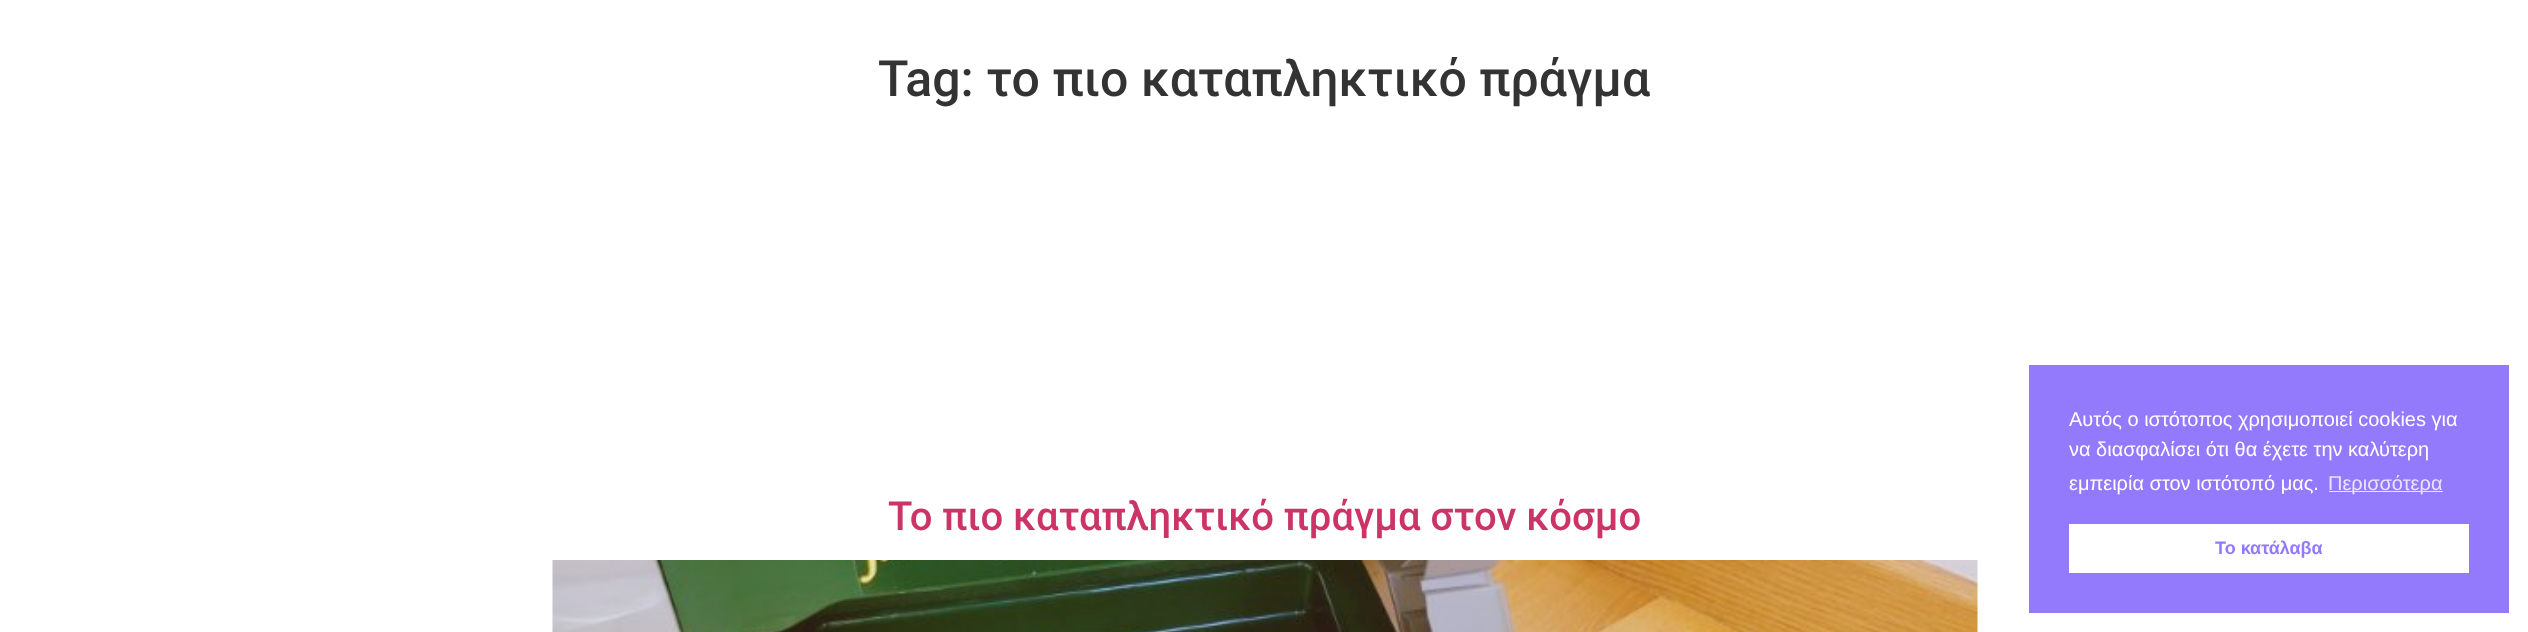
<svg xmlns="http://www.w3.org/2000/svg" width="2528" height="632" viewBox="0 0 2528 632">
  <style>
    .t1 { font: 500 50px Roboto; fill: #333; }
    .t2 { font: 500 40px Roboto; fill: #c36; }
    .t3 { font: 20px Liberation Sans; fill: #fff; }
    .t4 { font: 20px Liberation Sans; fill: #e9e4fe; }
    .t5 { font: bold 18px Liberation Sans; fill: #937afc; }
  </style>
  <rect width="100%" height="100%" fill="#fff"/>
  <text x="878" y="96" class="t1">Tag: το πιο καταπληκτικό πράγμα</text>
  <text x="888" y="530" class="t2">Το πιο καταπληκτικό πράγμα στον κόσμο</text>
  <image x="552" y="560" width="1426" height="72" href="images/1.png"/>
  <rect x="2029" y="365" width="480" height="248" fill="#937afc"/>
  <text x="2069" y="426" class="t3">Αυτός ο ιστότοπος χρησιμοποιεί cookies για</text>
  <text x="2069" y="456" class="t3">να διασφαλίσει ότι θα έχετε την καλύτερη</text>
  <text x="2069" y="490" class="t3">εμπειρία στον ιστότοπό μας.</text>
  <rect x="2329" y="491" width="114" height="1" fill="#e9e4fe"/>
  <text x="2328" y="490" class="t4">Περισσότερα</text>
  <rect x="2069" y="524" width="400" height="49" fill="#fff"/>
  <text x="2215" y="554" class="t5">Το κατάλαβα</text>
</svg>
